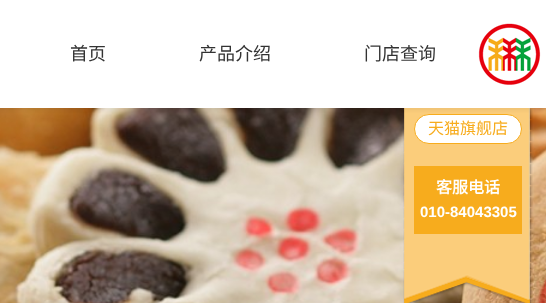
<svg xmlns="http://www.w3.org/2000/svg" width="546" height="303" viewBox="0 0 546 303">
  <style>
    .t1 { font: 18px Noto Sans CJK SC; fill: #333; }
    .t2 { font: 16px Noto Sans CJK SC; fill: #f7ac1d; }
    .t3 { font: bold 16px Noto Sans CJK SC; fill: #fff; }
    .t4 { font: bold 15px Liberation Sans; fill: #fff; }
  </style>
  <rect width="100%" height="100%" fill="#fff"/>
  <image x="0" y="108" width="546" height="195" href="images/2.png"/>
  <image x="403" y="108" width="130" height="161" href="images/3.png"/>
  <rect x="414.5" y="114.5" width="107" height="29" rx="14.5" fill="#fff" stroke="#f7ac1d"/>
  <rect x="-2" y="-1" width="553" height="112" fill="#0000000a" filter="blur(1.5px)"/>
  <rect x="0" y="0" width="546" height="108" fill="#fff"/>
  <text x="70" y="60" class="t1">首页</text>
  <text x="199" y="60" class="t1">产品介绍</text>
  <text x="364" y="60" class="t1">门店查询</text>
  <image x="478" y="23" width="63" height="62" href="images/1.png"/>
  <text x="428" y="134" class="t2">天猫旗舰店</text>
  <rect x="414" y="166" width="108" height="68" fill="#f7ac1d"/>
  <text x="436" y="193" class="t3">客服电话</text>
  <text x="420" y="217" class="t4">010-84043305</text>
  <image x="403" y="269" width="130" height="34" href="images/4.png"/>
</svg>
